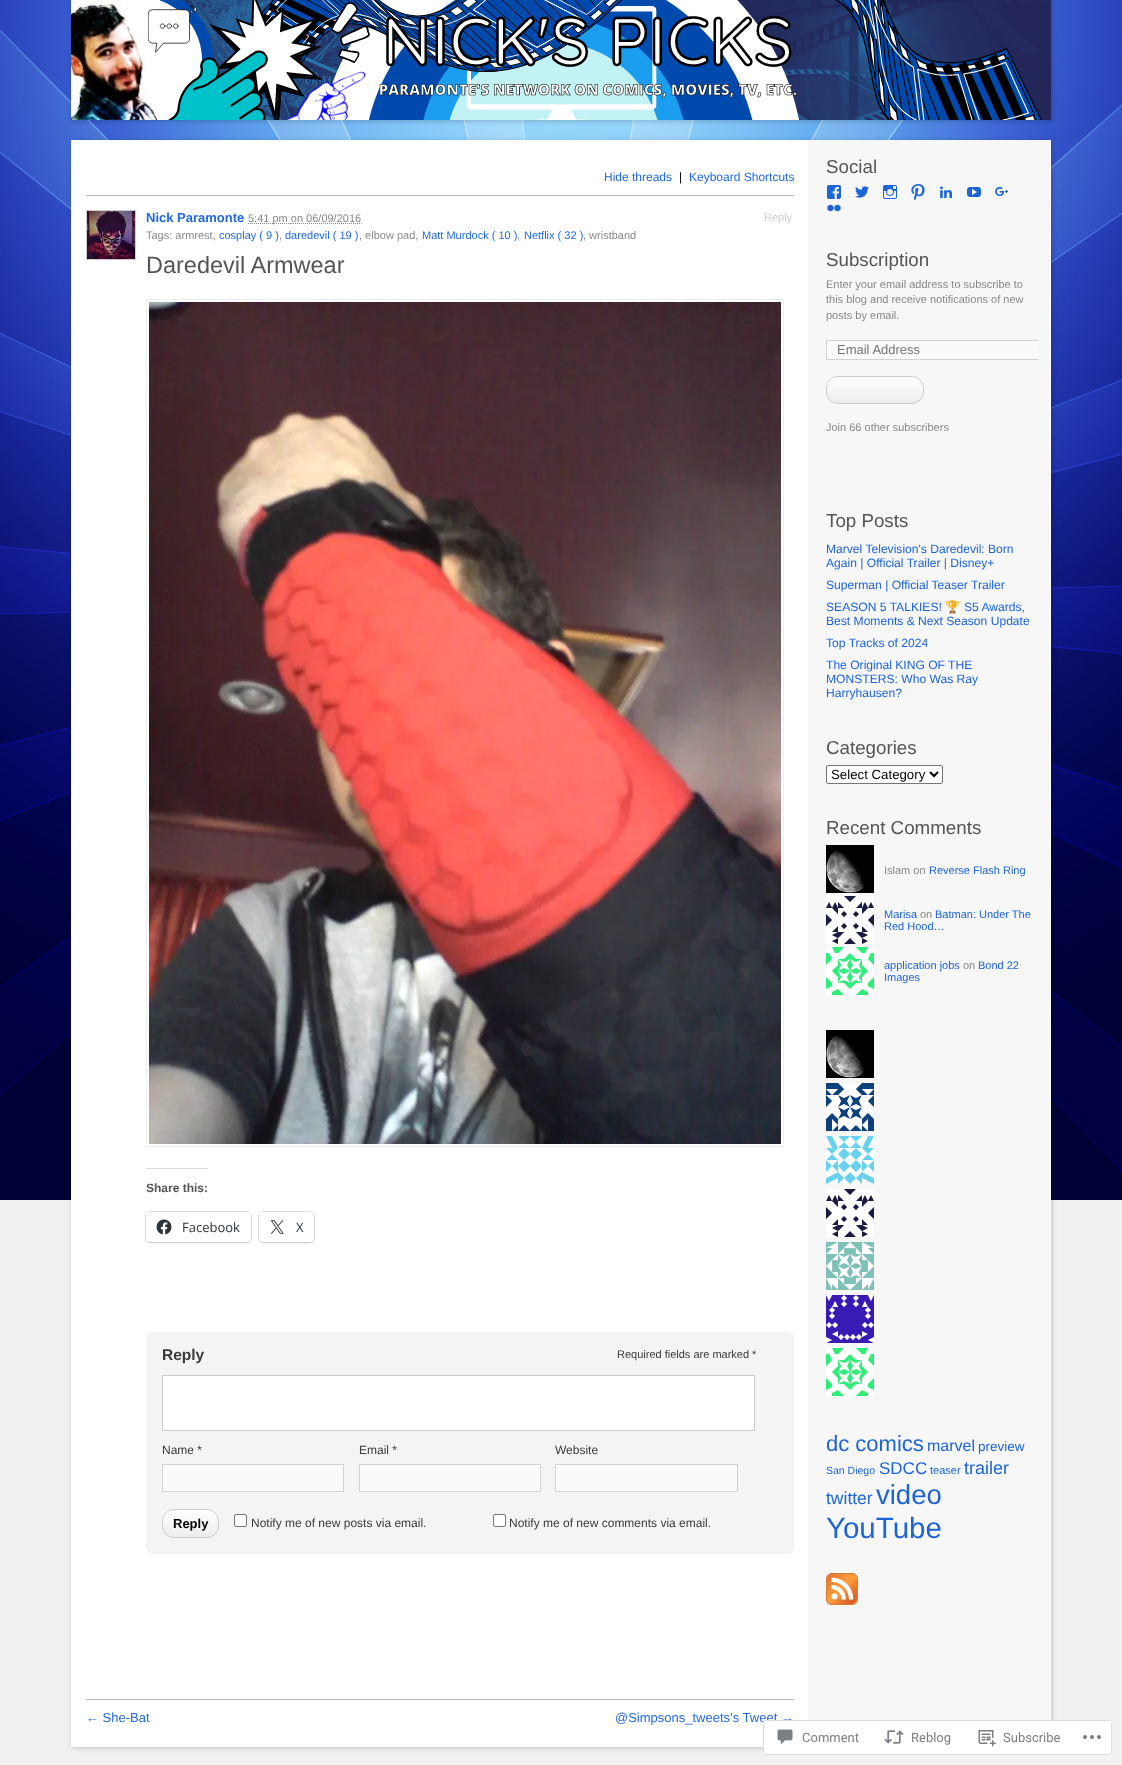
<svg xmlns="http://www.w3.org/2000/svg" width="1122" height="1765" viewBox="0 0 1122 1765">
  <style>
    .t1 { font: 12px Liberation Sans; fill: #1f69df; }
    .t2 { font: 12px Liberation Sans; fill: #000; }
    .t3 { font: bold 13px Liberation Sans; fill: #1f69df; }
    .t4 { font: 11px Liberation Sans; fill: #888; }
    .t5 { font: 11px Liberation Sans; fill: #ccc; }
    .t6 { font: 11px Liberation Sans; fill: #1f69df; }
    .t7 { font: 23.5px Liberation Sans; fill: #555; }
    .t8 { font: bold 12px Liberation Sans; fill: #555; }
    .t9 { font: 13px Open Sans; fill: #2c3338; }
    .t10 { font: bold 15.5px Liberation Sans; fill: #3a3a3a; }
    .t11 { font: 11px Liberation Sans; fill: #3a3a3a; }
    .t12 { font: 12px Liberation Sans; fill: #3a3a3a; }
    .t13 { font: bold 13px Liberation Sans; fill: #000; }
    .t14 { font: 13px Liberation Sans; fill: #1f69df; }
    .t15 { font: 18.75px Liberation Sans; fill: #555; }
    .t16 { font: 13px Liberation Sans; fill: #757575; }
    .t17 { font: 12.1px Liberation Sans; fill: #1c64d8; }
    .t18 { font: 12.1px Noto Color Emoji; fill: #1c64d8; }
    .t19 { font: 13.25px Liberation Sans; fill: #000; }
    .t20 { font: 11px Liberation Sans; fill: #1c64d8; }
    .t21 { font: 22px Liberation Sans; fill: #1c64d8; }
    .t22 { font: 16px Liberation Sans; fill: #1c64d8; }
    .t23 { font: 13.5px Liberation Sans; fill: #1c64d8; }
    .t24 { font: 10.5px Liberation Sans; fill: #1c64d8; }
    .t25 { font: 17px Liberation Sans; fill: #1c64d8; }
    .t26 { font: 18px Liberation Sans; fill: #1c64d8; }
    .t27 { font: 17.5px Liberation Sans; fill: #1c64d8; }
    .t28 { font: 27.5px Liberation Sans; fill: #1c64d8; }
    .t29 { font: 29.5px Liberation Sans; fill: #1c64d8; }
    .t30 { font: 13px Roboto; fill: #7b7f84; }
  </style>
  <defs>
    <clipPath id="clip1"><rect x="162" y="1509" width="57" height="29" rx="12"/></clipPath>
    <linearGradient id="g1" gradientUnits="userSpaceOnUse" x1="191" y1="1510" x2="191" y2="1537"><stop offset="0" stop-color="#fff"/><stop offset="1" stop-color="#ededed"/></linearGradient>
    <clipPath id="clip2"><rect x="826" y="240" width="212" height="217"/></clipPath>
    <clipPath id="clip3"><rect x="826" y="376" width="98" height="28" rx="12"/></clipPath>
    <linearGradient id="g2" gradientUnits="userSpaceOnUse" x1="875" y1="377" x2="875" y2="403"><stop offset="0" stop-color="#fff"/><stop offset="1" stop-color="#ededed"/></linearGradient>
  </defs>
  <rect width="100%" height="100%" fill="#f1f1f1"/>
  <image x="0" y="0" width="1122" height="1200" href="images/1.png"/>
  <rect x="72" y="1" width="980" height="120" fill="#00000033" filter="blur(2.5px)"/>
  <image x="71" y="0" width="980" height="120" href="images/2.png"/>
  <rect x="72" y="141" width="980" height="1607" fill="#00000033" filter="blur(2.5px)"/>
  <rect x="71" y="140" width="980" height="1607" fill="#fff"/>
  <rect x="808" y="140" width="242" height="1607" fill="#f7f7f7"/>
  <text x="604" y="181" class="t1">Hide threads</text>
  <text x="679" y="181" class="t2">|</text>
  <text x="689" y="181" class="t1">Keyboard Shortcuts</text>
  <rect x="86" y="195" width="708" height="1" fill="#bbb"/>
  <rect x="86.5" y="210.5" width="49" height="49" fill="none" stroke="#ccc"/>
  <image x="87" y="211" width="48" height="48" href="images/3.png"/>
  <text x="146" y="222" class="t3">Nick Paramonte</text>
  <path d="M248 223.5H291" fill="none" stroke="#888" stroke-dasharray="1 1"/>
  <text x="248" y="222" class="t4">5:41 pm on 06/09/2016</text>
  <path d="M291 223.5H303" fill="none" stroke="#888" stroke-dasharray="1 1"/>
  <path d="M303 223.5H361.5" fill="none" stroke="#888" stroke-dasharray="1 1"/>
  <text x="764" y="221" class="t5">Reply</text>
  <text x="146" y="239" class="t4">Tags: armrest,</text>
  <text x="219" y="239" class="t6">cosplay ( 9 )</text>
  <text x="279" y="239" class="t4">,</text>
  <text x="285" y="239" class="t6">daredevil ( 19 )</text>
  <text x="359" y="239" class="t4">, elbow pad,</text>
  <text x="422" y="239" class="t6">Matt Murdock ( 10 )</text>
  <text x="517" y="239" class="t4">,</text>
  <text x="524" y="239" class="t6">Netflix ( 32 )</text>
  <text x="583" y="239" class="t4">, wristband</text>
  <text x="146" y="273" class="t7">Daredevil Armwear</text>
  <rect x="146.5" y="299.5" width="637" height="847" fill="none" stroke="#eee"/>
  <image x="149" y="302" width="632" height="842" href="images/4.png"/>
  <rect x="146" y="1168" width="62" height="1" fill="#dcdcde"/>
  <text x="146" y="1192" class="t8">Share this:</text>
  <rect x="145.5" y="1211.5" width="106" height="31" rx="4.5" fill="none" stroke="#e0e0e0"/>
  <rect x="146" y="1213" width="105" height="30" rx="4" fill="#0000001f" filter="blur(1px)"/>
  <rect x="146" y="1212" width="105" height="30" rx="4" fill="#fff"/>
  <image x="156" y="1219" width="16" height="16" href="images/5.png"/>
  <text x="182" y="1232" class="t9">Facebook</text>
  <rect x="258.5" y="1211.5" width="56" height="31" rx="4.5" fill="none" stroke="#e0e0e0"/>
  <rect x="259" y="1213" width="55" height="30" rx="4" fill="#0000001f" filter="blur(1px)"/>
  <rect x="259" y="1212" width="55" height="30" rx="4" fill="#fff"/>
  <image x="270" y="1220" width="14" height="14" href="images/6.png"/>
  <text x="296" y="1232" class="t9">X</text>
  <rect x="146" y="1332" width="648" height="222" rx="6" fill="#f4f4f4"/>
  <text x="162" y="1360" class="t10">Reply</text>
  <text x="617" y="1358" class="t11">Required fields are marked *</text>
  <rect x="162.5" y="1375.5" width="592" height="55" fill="#fff" stroke="#ccc"/>
  <text x="162" y="1454" class="t12">Name *</text>
  <rect x="162.5" y="1464.5" width="181" height="27" fill="#fafafa" stroke="#d1d1d1"/>
  <text x="359" y="1454" class="t12">Email *</text>
  <rect x="359.5" y="1464.5" width="181" height="27" fill="#fafafa" stroke="#d1d1d1"/>
  <text x="555" y="1454" class="t12">Website</text>
  <rect x="555.5" y="1464.5" width="182" height="27" fill="#fafafa" stroke="#d1d1d1"/>
  <g clip-path="url(#clip1)">
    <rect x="162" y="1510" width="57" height="27" fill="url(#g1)"/>
  </g>
  <rect x="162.5" y="1509.5" width="56" height="28" rx="11.5" fill="none" stroke="#ccc"/>
  <text x="173" y="1528" class="t13">Reply</text>
  <rect x="234.5" y="1514.5" width="12" height="12" rx="1.5" fill="#fff" stroke="#767676"/>
  <text x="251" y="1527" class="t12">Notify me of new posts via email.</text>
  <rect x="493.5" y="1514.5" width="12" height="12" rx="1.5" fill="#fff" stroke="#767676"/>
  <text x="509" y="1527" class="t12">Notify me of new comments via email.</text>
  <rect x="86" y="1699" width="708" height="1" fill="#bbb"/>
  <text x="86" y="1722" class="t14">← She-Bat</text>
  <text x="615" y="1722" class="t14">@Simpsons_tweets’s Tweet →</text>
  <text x="826" y="173" class="t15">Social</text>
  <image x="827" y="185" width="14" height="14" href="images/7.png"/>
  <image x="855" y="186" width="14" height="12" href="images/8.png"/>
  <image x="883" y="185" width="14" height="14" href="images/9.png"/>
  <image x="911" y="184" width="14" height="16" href="images/10.png"/>
  <image x="940" y="186" width="12" height="12" href="images/11.png"/>
  <image x="967" y="187" width="14" height="10" href="images/12.png"/>
  <image x="995" y="186" width="13" height="11" href="images/13.png"/>
  <image x="827" y="204" width="14" height="8" href="images/14.png"/>
  <text x="826" y="266" class="t15">Subscription</text>
  <text x="826" y="288" class="t4">Enter your email address to subscribe to</text>
  <text x="826" y="303" class="t4">this blog and receive notifications of new</text>
  <text x="826" y="319" class="t4">posts by email.</text>
  <rect x="827" y="341" width="211" height="18" fill="#fafafa"/>
  <g clip-path="url(#clip2)">
    <rect x="826.5" y="340.5" width="222" height="19" fill="none" stroke="#d1d1d1"/>
  </g>
  <text x="837" y="354" class="t16">Email Address</text>
  <g clip-path="url(#clip3)">
    <rect x="826" y="377" width="98" height="26" fill="url(#g2)"/>
  </g>
  <rect x="826.5" y="376.5" width="97" height="27" rx="11.5" fill="none" stroke="#ccc"/>
  <text x="826" y="431" class="t4">Join 66 other subscribers</text>
  <text x="826" y="527" class="t15">Top Posts</text>
  <text x="826" y="553" class="t17">Marvel Television's Daredevil: Born</text>
  <text x="826" y="567" class="t17">Again | Official Trailer | Disney+</text>
  <text x="826" y="589" class="t17">Superman | Official Teaser Trailer</text>
  <text x="826" y="611" class="t17">SEASON 5 TALKIES!</text>
  <text x="945" y="611" class="t18">🏆</text>
  <text x="964" y="611" class="t17">S5 Awards,</text>
  <text x="826" y="625" class="t17">Best Moments &amp; Next Season Update</text>
  <text x="826" y="647" class="t17">Top Tracks of 2024</text>
  <text x="826" y="669" class="t17">The Original KING OF THE</text>
  <text x="826" y="683" class="t17">MONSTERS: Who Was Ray</text>
  <text x="826" y="697" class="t17">Harryhausen?</text>
  <text x="826" y="754" class="t15">Categories</text>
  <rect x="826.5" y="765.5" width="116" height="18" rx="1.5" fill="#fff" stroke="#767676"/>
  <path d="M930 772L934 776L938 772" fill="none" stroke="#000" stroke-width="2"/>
  <text x="831" y="779" class="t19">Select Category</text>
  <text x="826" y="834" class="t15">Recent Comments</text>
  <image x="826" y="845" width="48" height="48" href="images/15.png"/>
  <text x="884" y="874" class="t4">Islam on</text>
  <text x="929" y="874" class="t20">Reverse Flash Ring</text>
  <image x="826" y="896" width="48" height="48" href="images/16.png"/>
  <text x="884" y="918" class="t20">Marisa</text>
  <text x="920" y="918" class="t4">on</text>
  <text x="935" y="918" class="t20">Batman: Under The</text>
  <text x="884" y="930" class="t20">Red Hood…</text>
  <image x="826" y="947" width="48" height="48" href="images/17.png"/>
  <text x="884" y="969" class="t20">application jobs</text>
  <text x="963" y="969" class="t4">on</text>
  <text x="978" y="969" class="t20">Bond 22</text>
  <text x="884" y="981" class="t20">Images</text>
  <image x="826" y="1030" width="48" height="48" href="images/15.png"/>
  <image x="826" y="1083" width="48" height="48" href="images/18.png"/>
  <image x="826" y="1136" width="48" height="48" href="images/19.png"/>
  <image x="826" y="1189" width="48" height="48" href="images/16.png"/>
  <image x="826" y="1242" width="48" height="48" href="images/20.png"/>
  <image x="826" y="1295" width="48" height="48" href="images/21.png"/>
  <image x="826" y="1348" width="48" height="48" href="images/17.png"/>
  <text x="826" y="1451" class="t21">dc comics</text>
  <text x="927" y="1451" class="t22">marvel</text>
  <text x="978" y="1451" class="t23">preview</text>
  <text x="826" y="1474" class="t24">San Diego</text>
  <text x="879" y="1474" class="t25">SDCC</text>
  <text x="930" y="1474" class="t20">teaser</text>
  <text x="964" y="1474" class="t26">trailer</text>
  <text x="826" y="1504" class="t27">twitter</text>
  <text x="876" y="1504" class="t28">video</text>
  <text x="826" y="1538" class="t29">YouTube</text>
  <image x="826" y="1573" width="32" height="32" href="images/22.png"/>
  <rect x="763" y="1720" width="349" height="35" rx="3" fill="#fffffffa"/>
  <rect x="763.5" y="1720.5" width="348" height="34" rx="2.5" fill="none" stroke="#dcdcdefa"/>
  <image x="777" y="1729" width="16" height="16" href="images/23.png"/>
  <text x="802" y="1742" class="t30">Comment</text>
  <image x="884" y="1730" width="20" height="14" href="images/24.png"/>
  <text x="911" y="1742" class="t30">Reblog</text>
  <image x="978" y="1730" width="18" height="17" href="images/25.png"/>
  <text x="1003" y="1742" class="t30">Subscribe</text>
  <image x="1083" y="1735" width="18" height="4" href="images/26.png"/>
</svg>
